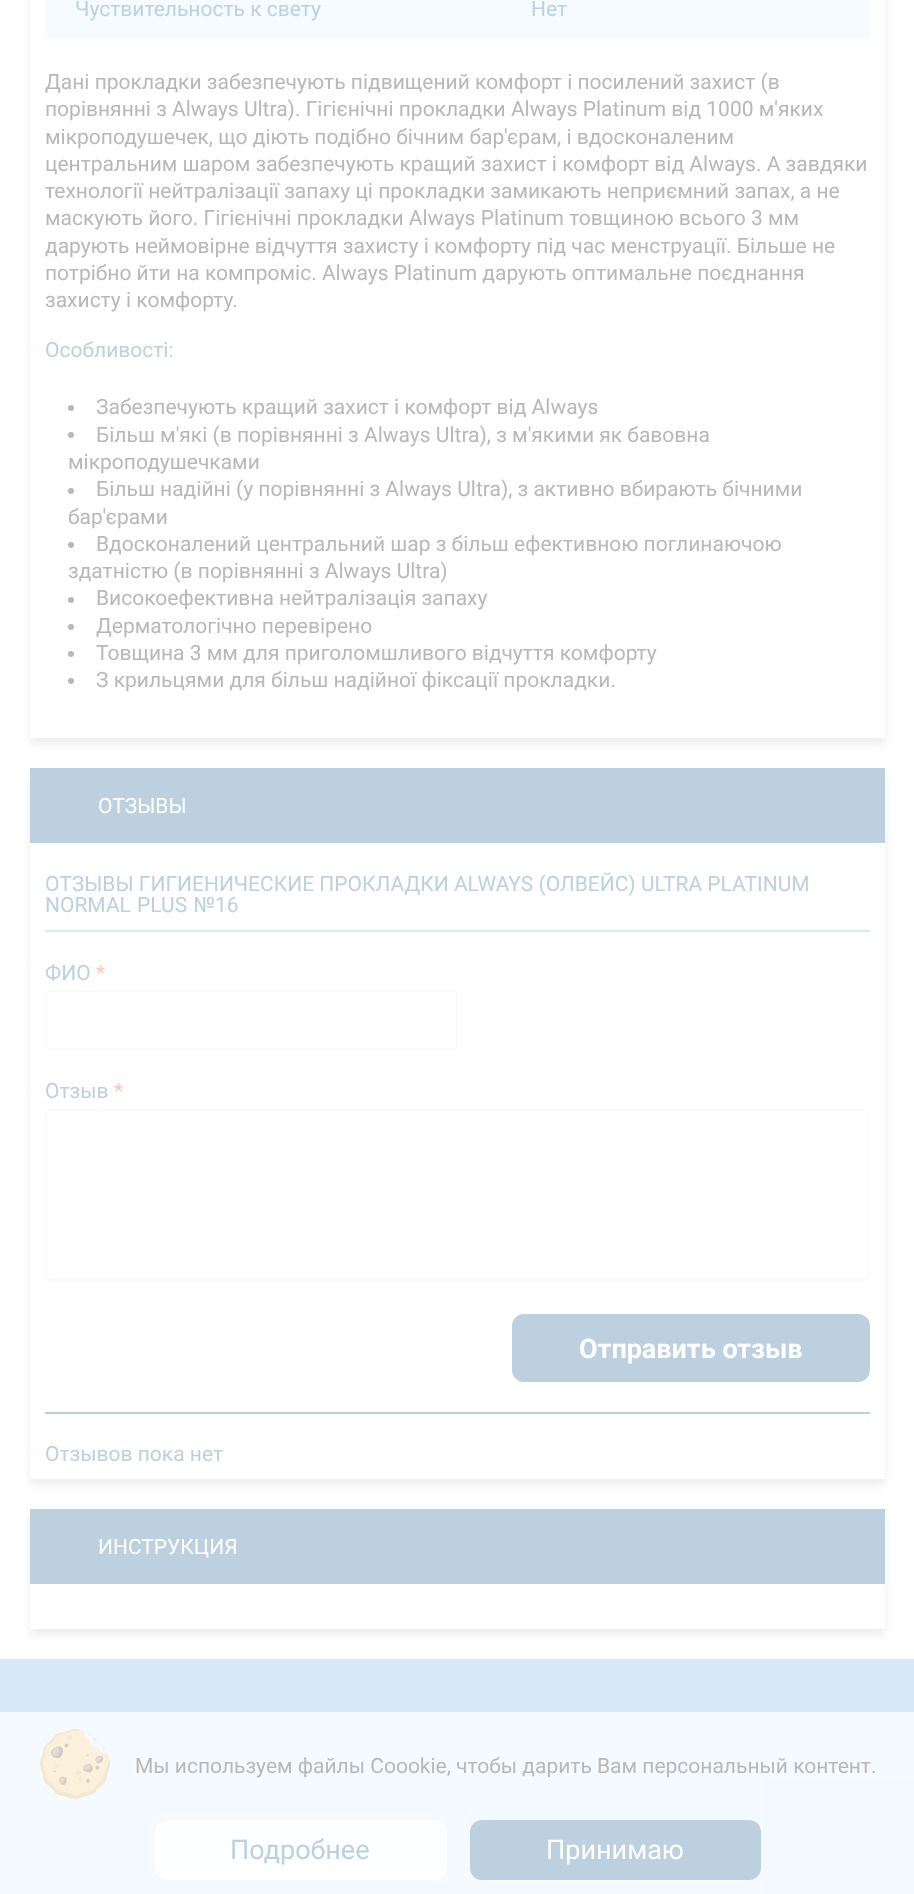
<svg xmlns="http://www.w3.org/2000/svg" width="914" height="1894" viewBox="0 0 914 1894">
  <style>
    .t1 { font: 21px Roboto; fill: #bdd0df; }
    .t2 { font: 21px Roboto; fill: #b8b8b8; }
    .t3 { font: 21px Roboto; fill: #fff; }
    .t4 { font: 21px Roboto; fill: #ffc4b8; }
    .t5 { font: bold 27px Roboto; fill: #fff; }
    .t6 { font: 27px Roboto; fill: #bdd0df; }
    .t7 { font: 27px Roboto; fill: #fff; }
  </style>
  <defs>
    <clipPath id="clip1"><path d="M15 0H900V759H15ZM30-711H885V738H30Z" clip-rule="evenodd"/></clipPath>
    <clipPath id="clip2"><path d="M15 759H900V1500H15ZM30 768H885V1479H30Z" clip-rule="evenodd"/></clipPath>
    <clipPath id="clip3"><path d="M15 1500H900V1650H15ZM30 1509H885V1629H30Z" clip-rule="evenodd"/></clipPath>
  </defs>
  <rect width="100%" height="100%" fill="#fff"/>
  <g clip-path="url(#clip1)">
    <rect x="30" y="-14" width="855" height="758" fill="#b8b8b840" filter="blur(4.5px)"/>
  </g>
  <rect x="45" y="0" width="825" height="38" fill="#f5fbff"/>
  <text x="75" y="16" class="t1">Чуствительность к свету</text>
  <text x="531" y="16" class="t1">Нет</text>
  <text x="45" y="89" class="t2">Дані прокладки забезпечують підвищений комфорт і посилений захист (в</text>
  <text x="45" y="116" class="t2">порівнянні з Always Ultra). Гігієнічні прокладки Always Platinum від 1000 м'яких</text>
  <text x="45" y="144" class="t2">мікроподушечек, що діють подібно бічним бар'єрам, і вдосконаленим</text>
  <text x="45" y="171" class="t2">центральним шаром забезпечують кращий захист і комфорт від Always. А завдяки</text>
  <text x="45" y="198" class="t2">технології нейтралізації запаху ці прокладки замикають неприємний запах, а не</text>
  <text x="45" y="225" class="t2">маскують його. Гігієнічні прокладки Always Platinum товщиною всього 3 мм</text>
  <text x="45" y="253" class="t2">дарують неймовірне відчуття захисту і комфорту під час менструації. Більше не</text>
  <text x="45" y="280" class="t2">потрібно йти на компроміс. Always Platinum дарують оптимальне поєднання</text>
  <text x="45" y="307" class="t2">захисту і комфорту.</text>
  <text x="45" y="357" class="t1">Особливості:</text>
  <circle cx="71" cy="408" r="3" fill="#b8b8b8"/>
  <text x="96" y="414" class="t2">Забезпечують кращий захист і комфорт від Always</text>
  <circle cx="71" cy="435" r="3" fill="#b8b8b8"/>
  <text x="96" y="442" class="t2">Більш м'які (в порівнянні з Always Ultra), з м'якими як бавовна</text>
  <text x="68" y="469" class="t2">мікроподушечками</text>
  <circle cx="71" cy="491" r="3" fill="#b8b8b8"/>
  <text x="96" y="496" class="t2">Більш надійні (у порівнянні з Always Ultra), з активно вбирають бічними</text>
  <text x="68" y="524" class="t2">бар'єрами</text>
  <circle cx="71" cy="545" r="3" fill="#b8b8b8"/>
  <text x="96" y="551" class="t2">Вдосконалений центральний шар з більш ефективною поглинаючою</text>
  <text x="68" y="578" class="t2">здатністю (в порівнянні з Always Ultra)</text>
  <circle cx="71" cy="600" r="3" fill="#b8b8b8"/>
  <text x="96" y="605" class="t2">Високоефективна нейтралізація запаху</text>
  <circle cx="71" cy="627" r="3" fill="#b8b8b8"/>
  <text x="96" y="633" class="t2">Дерматологічно перевірено</text>
  <circle cx="71" cy="654" r="3" fill="#b8b8b8"/>
  <text x="96" y="660" class="t2">Товщина 3 мм для приголомшливого відчуття комфорту</text>
  <circle cx="71" cy="681" r="3" fill="#b8b8b8"/>
  <text x="96" y="687" class="t2">З крильцями для більш надійної фіксації прокладки.</text>
  <g clip-path="url(#clip2)">
    <rect x="30" y="774" width="855" height="711" fill="#b8b8b840" filter="blur(4.5px)"/>
  </g>
  <rect x="30" y="768" width="855" height="75" fill="#bdd0df"/>
  <text x="98" y="813" class="t3">ОТЗЫВЫ</text>
  <rect x="45" y="930" width="825" height="2" fill="#d5e9f9"/>
  <text x="45" y="891" class="t1">ОТЗЫВЫ ГИГИЕНИЧЕСКИЕ ПРОКЛАДКИ ALWAYS (ОЛВЕЙС) ULTRA PLATINUM</text>
  <text x="45" y="912" word-spacing="1" class="t1">NORMAL PLUS №16</text>
  <text x="45" y="980" class="t1">ФИО</text>
  <text x="96" y="980" class="t4">*</text>
  <rect x="46" y="991" width="411" height="58" rx="5" fill="none" stroke="#f5fbff" stroke-width="2"/>
  <text x="45" y="1098" class="t1">Отзыв</text>
  <text x="114" y="1098" class="t4">*</text>
  <rect x="46" y="1110" width="823" height="170" rx="5" fill="none" stroke="#f5fbff" stroke-width="2"/>
  <rect x="512" y="1314" width="358" height="68" rx="12" fill="#bdd0df"/>
  <text x="579" y="1358" class="t5">Отправить отзыв</text>
  <rect x="45" y="1412" width="825" height="2" fill="#bdd0df"/>
  <text x="45" y="1461" class="t1">Отзывов пока нет</text>
  <g clip-path="url(#clip3)">
    <rect x="30" y="1515" width="855" height="120" fill="#b8b8b840" filter="blur(4.5px)"/>
  </g>
  <rect x="30" y="1509" width="855" height="75" fill="#bdd0df"/>
  <text x="98" y="1554" class="t3">ИНСТРУКЦИЯ</text>
  <rect x="0" y="1659" width="914" height="235" fill="#d5e9f9"/>
  <rect x="0" y="1712" width="914" height="182" fill="#ffffffbf"/>
  <image x="39" y="1728" width="72" height="72" href="images/1.png"/>
  <text x="135" y="1773" class="t2">Мы используем файлы Coookie, чтобы дарить Вам персональный контент.</text>
  <rect x="155" y="1820" width="292" height="60" rx="12" fill="#ffffffbf"/>
  <text x="230" y="1859" class="t6">Подробнее</text>
  <rect x="470" y="1820" width="291" height="60" rx="12" fill="#bdd0df"/>
  <text x="546" y="1859" class="t7">Принимаю</text>
</svg>
